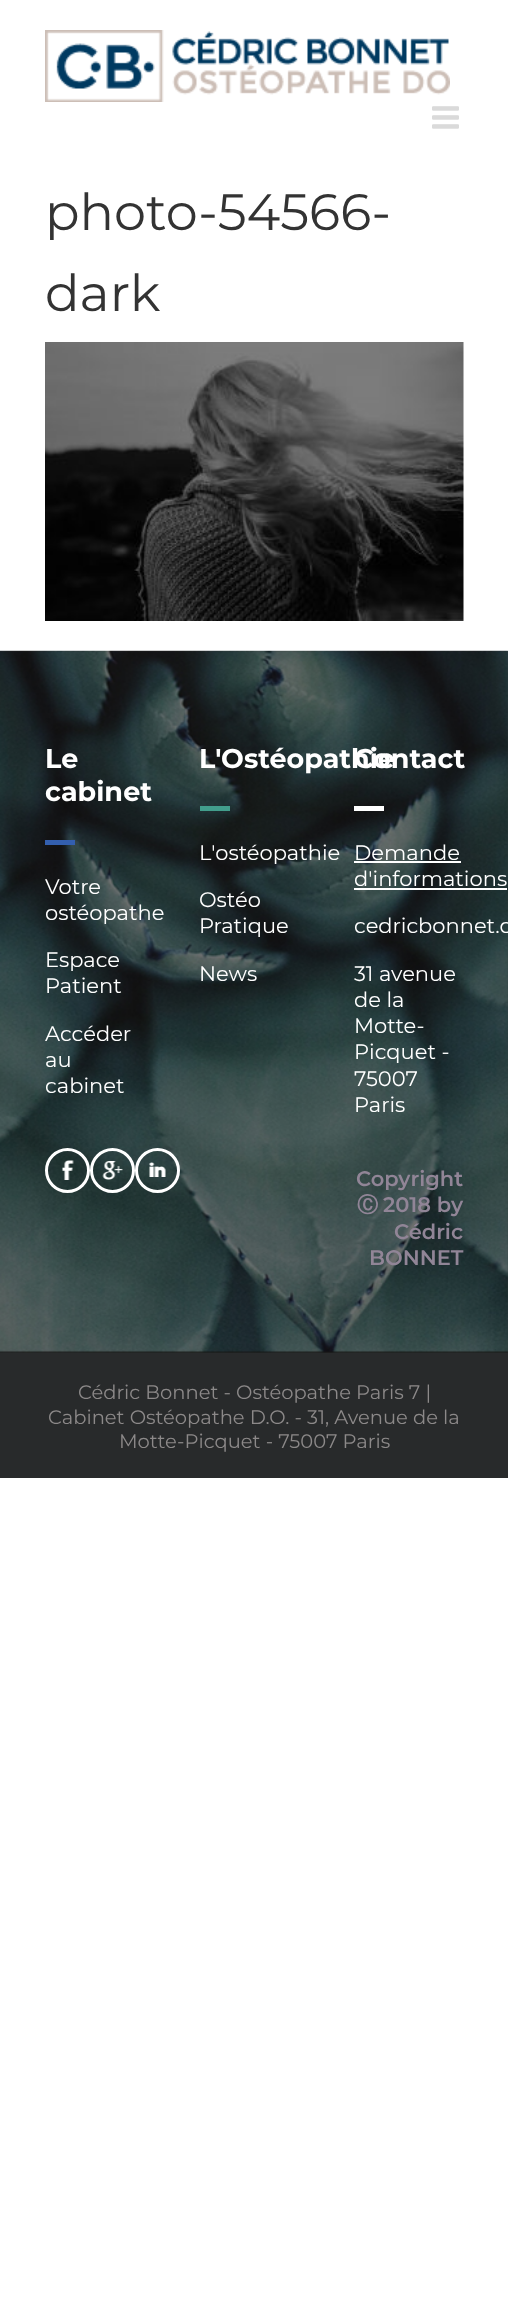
<svg xmlns="http://www.w3.org/2000/svg" width="508" height="2301" viewBox="0 0 508 2301">
  <style>
    .t1 { font: 51px Montserrat; fill: #333; }
    .t2 { font: bold 27px Montserrat; fill: #fff; }
    .t3 { font: 21px Montserrat; fill: #fff; }
    .t4 { font: 600 21px Montserrat; fill: #918597; }
    .t5 { font: bold 21px WenQuanYi Zen Hei; fill: #918597; }
    .t6 { font: 19.5px Montserrat; fill: #8c8989; }
  </style>
  <rect width="100%" height="100%" fill="#fff"/>
  <image x="45" y="30" width="405" height="72" href="images/1.png"/>
  <image x="432" y="106" width="27" height="23" href="images/2.png"/>
  <text x="45" y="230" class="t1">photo-54566-</text>
  <text x="45" y="311" class="t1">dark</text>
  <image x="45" y="342" width="419" height="279" href="images/3.png"/>
  <rect x="0" y="651" width="508" height="702" fill="#363839"/>
  <image x="0" y="650" width="508" height="703" href="images/4.png"/>
  <text x="45" y="768" class="t2">Le</text>
  <text x="45" y="801" class="t2">cabinet</text>
  <rect x="45" y="840" width="30" height="5" fill="#335faf"/>
  <text x="45" y="894" class="t3">Votre</text>
  <text x="45" y="920" class="t3">ostéopathe</text>
  <text x="45" y="967" class="t3">Espace</text>
  <text x="45" y="993" class="t3">Patient</text>
  <text x="45" y="1041" class="t3">Accéder</text>
  <text x="45" y="1067" class="t3">au</text>
  <text x="45" y="1093" class="t3">cabinet</text>
  <circle cx="67.5" cy="1170.5" r="21" fill="none" stroke="#fff" stroke-width="3"/>
  <image x="62" y="1160" width="12" height="20" href="images/5.png"/>
  <circle cx="112.5" cy="1170.5" r="21" fill="none" stroke="#fff" stroke-width="3"/>
  <image x="102" y="1161" width="21" height="19" href="images/6.png"/>
  <circle cx="157.5" cy="1170.5" r="21" fill="none" stroke="#fff" stroke-width="3"/>
  <image x="149" y="1162" width="17" height="15" href="images/7.png"/>
  <text x="199" y="768" class="t2">L'Ostéopathie</text>
  <rect x="200" y="806" width="30" height="5" fill="#429e8c"/>
  <text x="199" y="860" class="t3">L'ostéopathie</text>
  <text x="199" y="907" class="t3">Ostéo</text>
  <text x="199" y="933" class="t3">Pratique</text>
  <text x="199" y="981" class="t3">News</text>
  <text x="354" y="768" class="t2">Contact</text>
  <rect x="354" y="806" width="30" height="5" fill="#fff"/>
  <text x="354" y="860" class="t3">Demande</text>
  <rect x="354" y="861" width="107" height="2" fill="#fff"/>
  <text x="354" y="886" class="t3">d'informations</text>
  <rect x="354" y="888" width="153" height="2" fill="#fff"/>
  <text x="354" y="933" class="t3">cedricbonnet.o</text>
  <text x="354" y="981" class="t3">31 avenue</text>
  <text x="354" y="1007" class="t3">de la</text>
  <text x="354" y="1033" class="t3">Motte-</text>
  <text x="354" y="1059" class="t3">Picquet -</text>
  <text x="354" y="1086" class="t3">75007</text>
  <text x="354" y="1112" class="t3">Paris</text>
  <text x="356" y="1186" class="t4">Copyright</text>
  <text x="357" y="1212" class="t5">Ⓒ</text>
  <text x="383" y="1212" class="t4">2018 by</text>
  <text x="394" y="1239" class="t4">Cédric</text>
  <text x="369" y="1265" class="t4">BONNET</text>
  <rect x="0" y="1353" width="508" height="125" fill="#282a2b"/>
  <text x="78" y="1399" class="t6">Cédric Bonnet - Ostéopathe Paris 7 |</text>
  <text x="48" y="1424" class="t6">Cabinet Ostéopathe D.O. - 31, Avenue de la</text>
  <text x="119" y="1448" class="t6">Motte-Picquet - 75007 Paris</text>
</svg>
